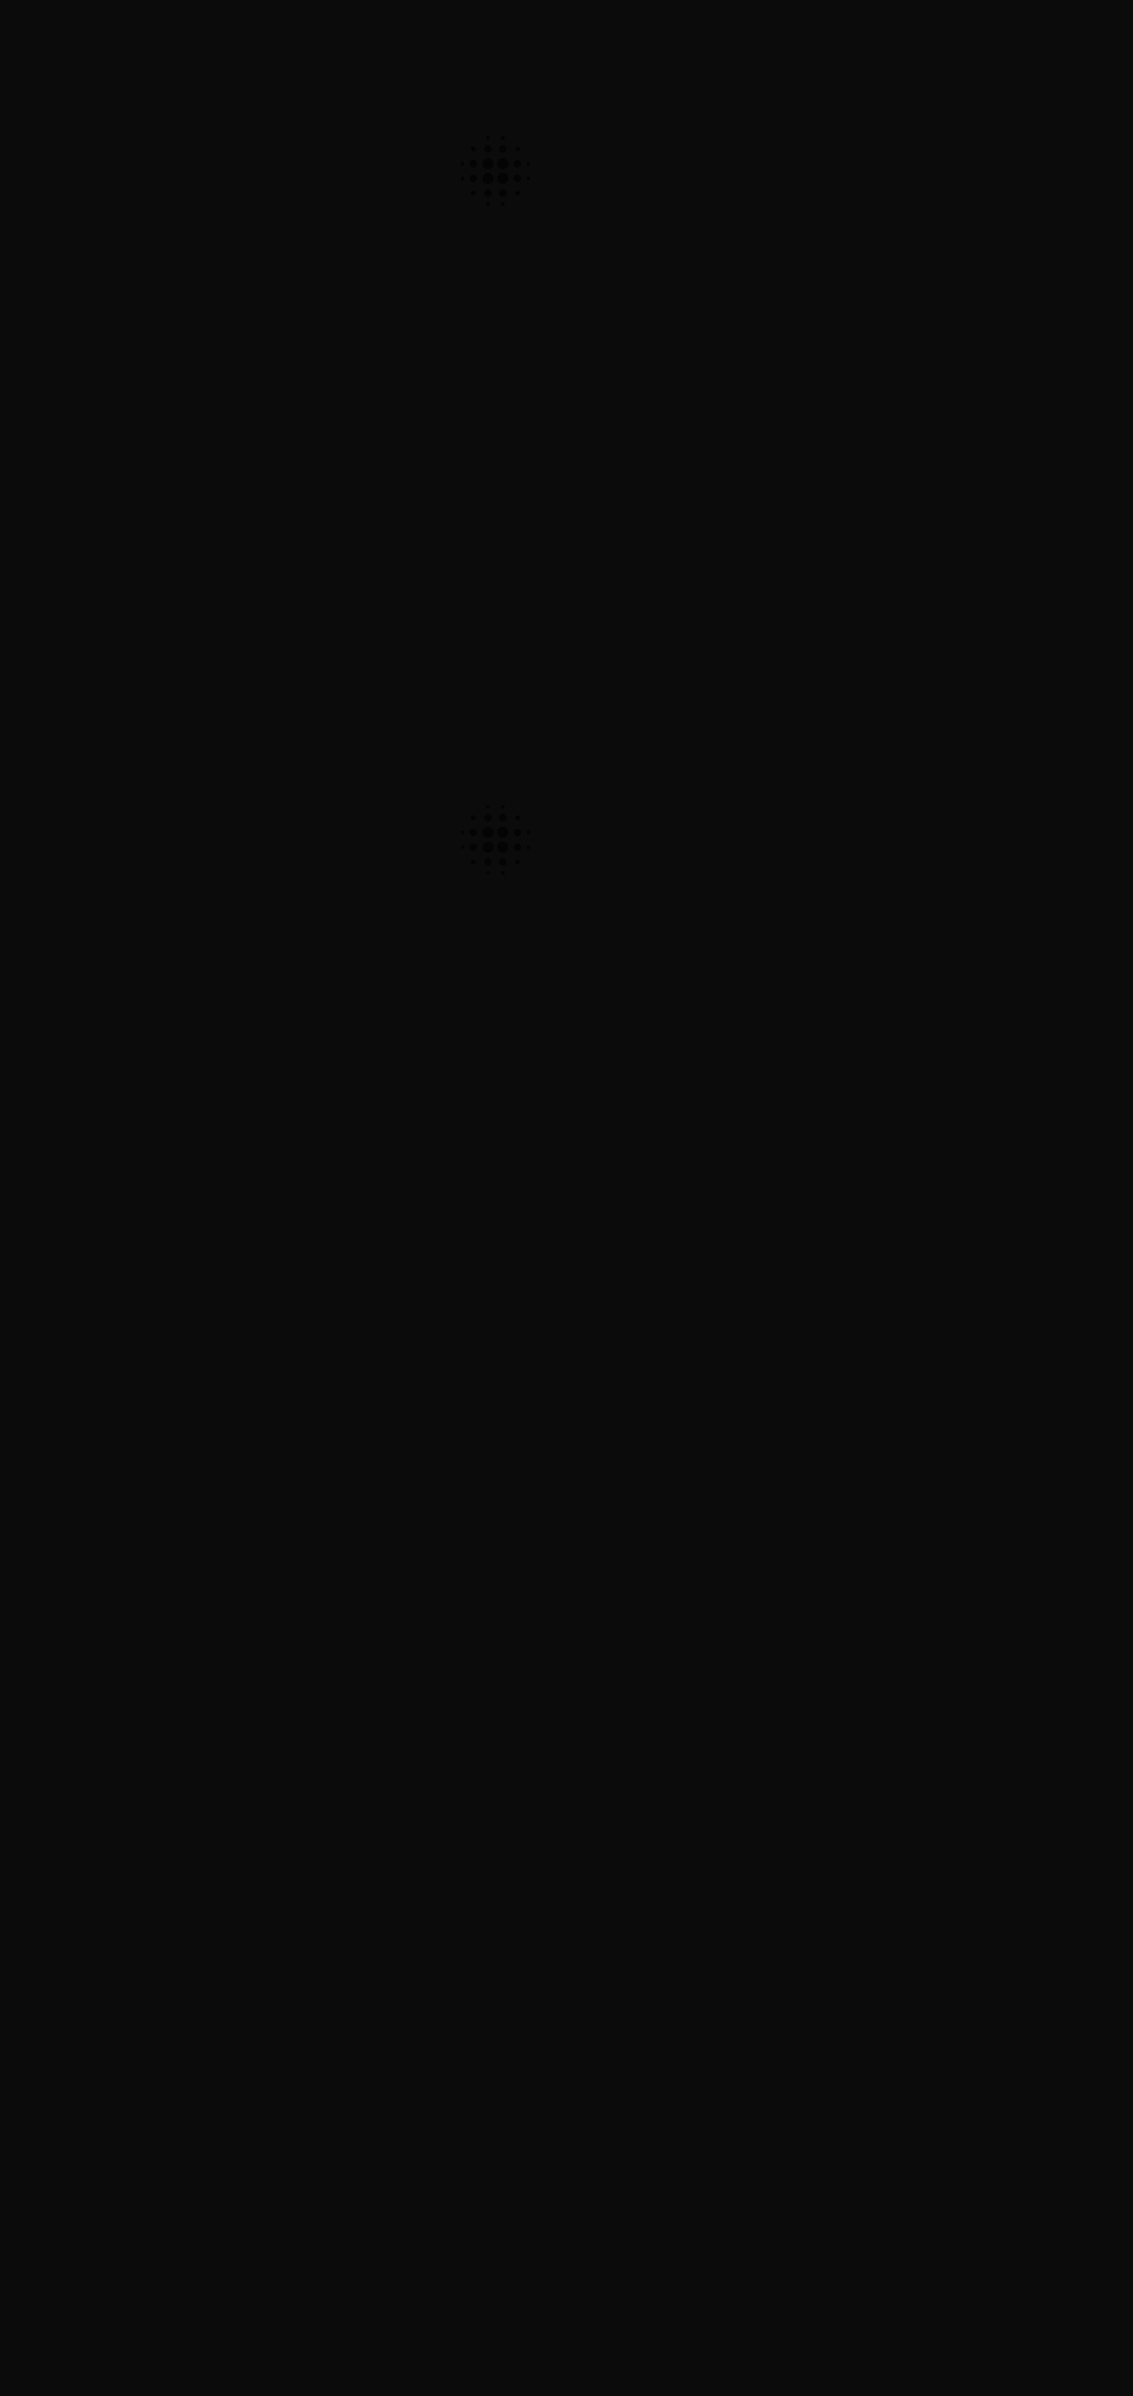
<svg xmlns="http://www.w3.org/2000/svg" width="1133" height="2396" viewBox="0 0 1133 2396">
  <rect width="100%" height="100%" fill="#0b0b0b"/>
  <image x="461" y="136" width="69" height="70" href="images/1.png"/>
  <image x="461" y="805" width="69" height="70" href="images/2.png"/>
</svg>
